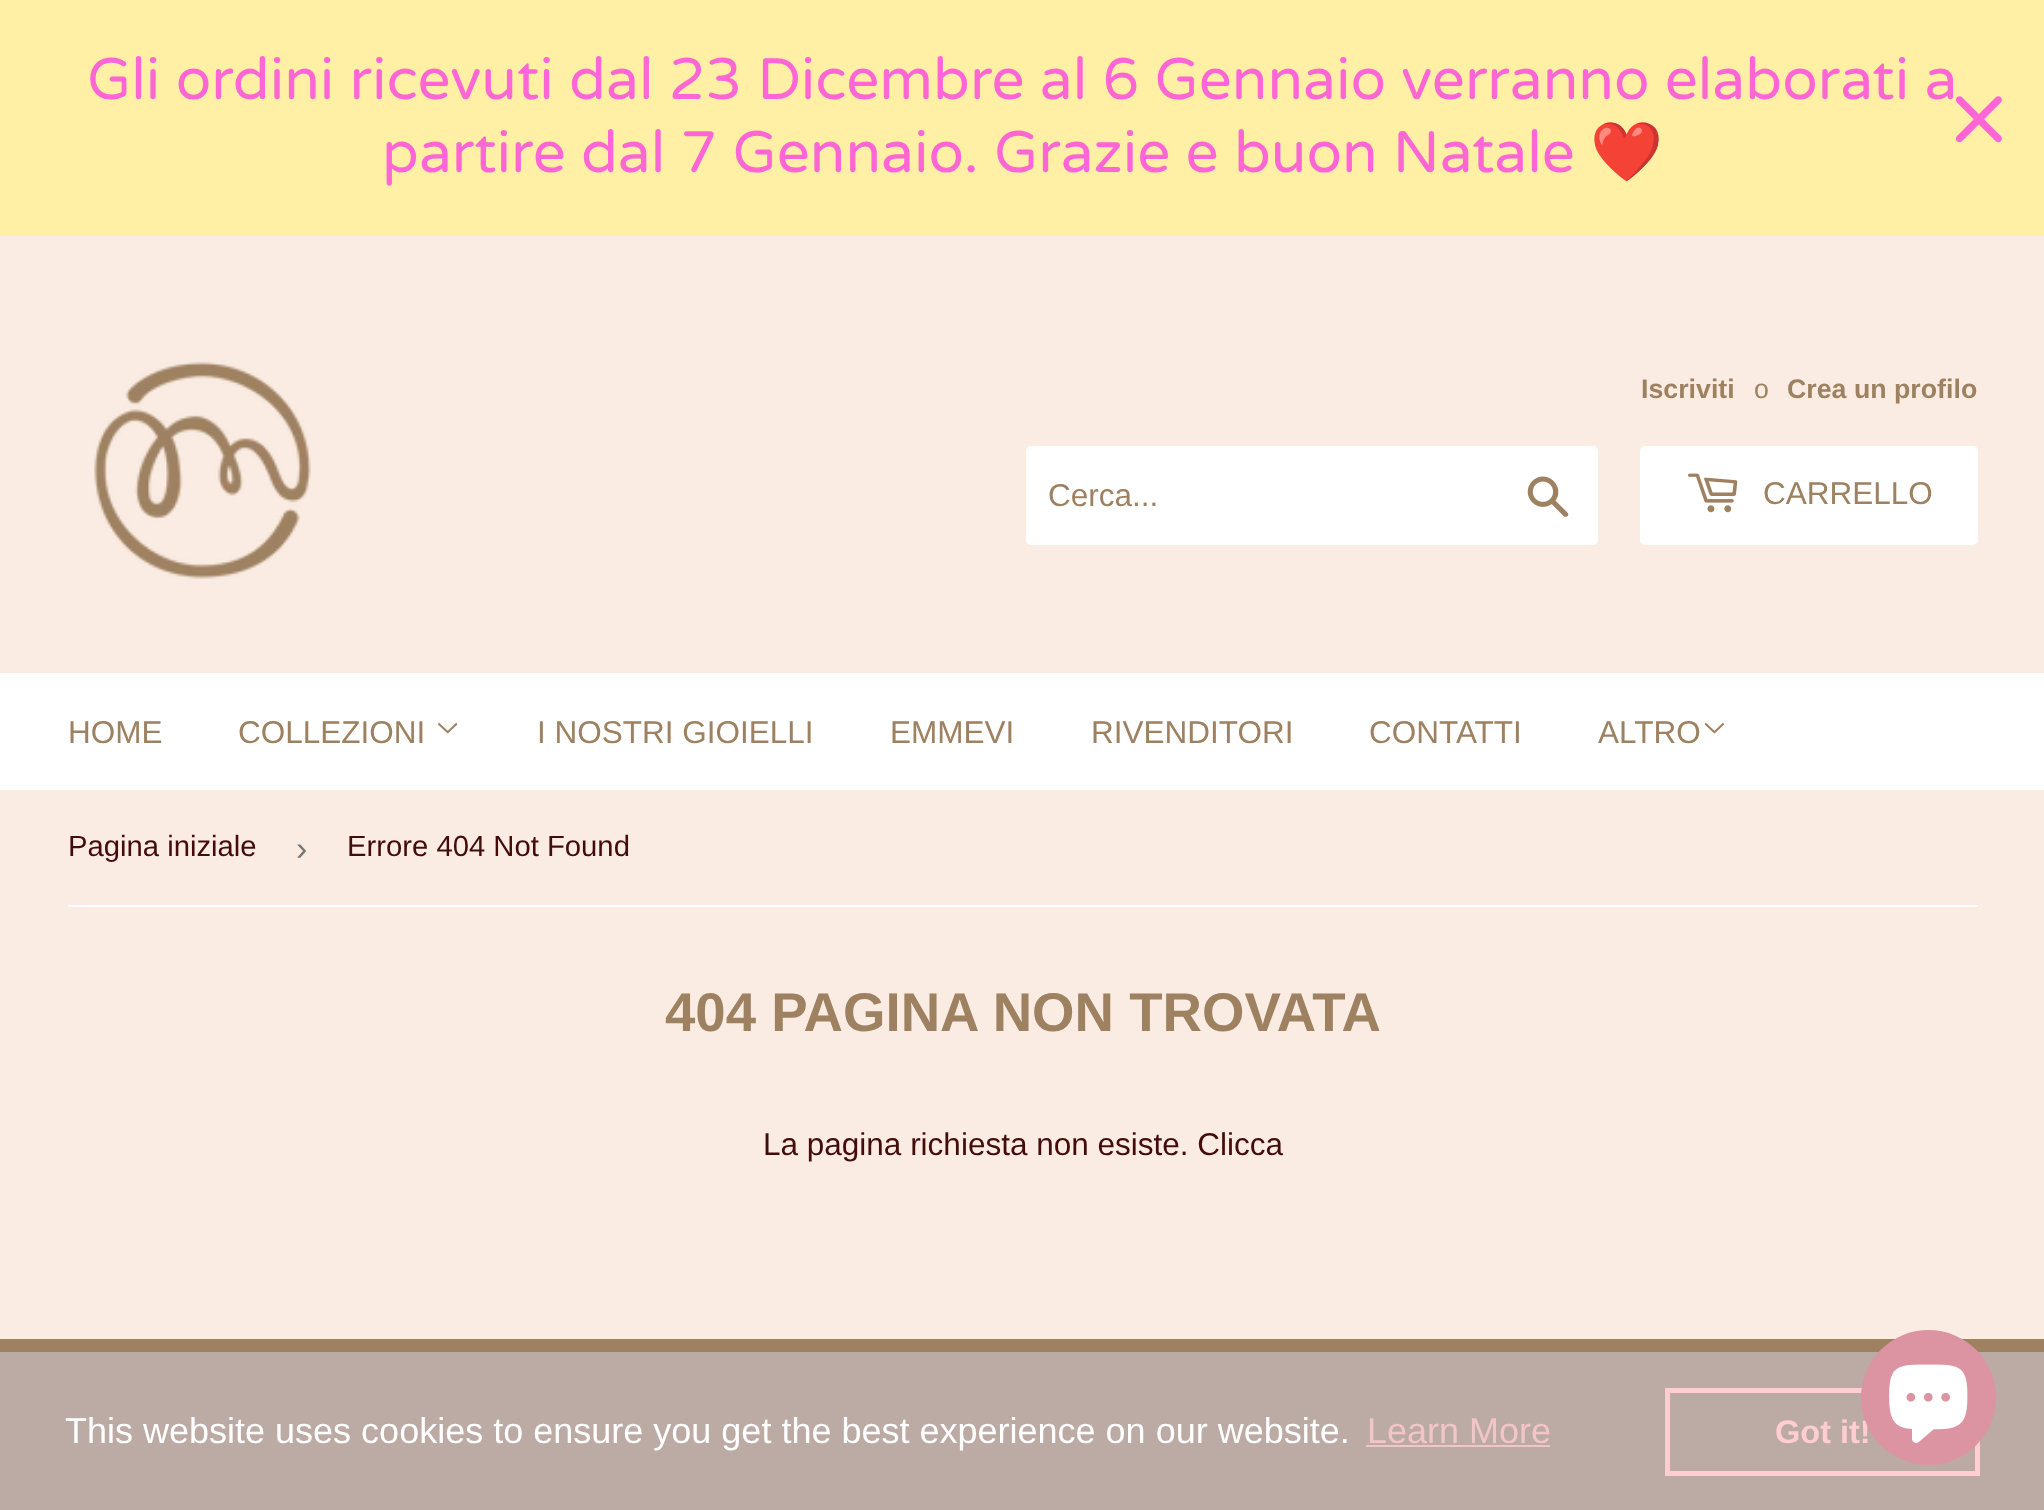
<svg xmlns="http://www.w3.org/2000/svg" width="2044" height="1510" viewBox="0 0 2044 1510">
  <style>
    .t1 { font: 58.5px Varela Round; fill: #ff66d5; }
    .t2 { font: 58.5px Noto Color Emoji; fill: #ff66d5; }
    .t3 { font: bold 26.75px Liberation Sans; fill: #9e8161; }
    .t4 { font: 26.75px Liberation Sans; fill: #9e8161; }
    .t5 { font: 31.5px Liberation Sans; fill: #9e8161; }
    .t6 { font: 29.25px Liberation Sans; fill: #440b0b; }
    .t7 { font: 34px Liberation Sans; fill: #767676; }
    .t8 { font: bold 54.6px Liberation Sans; fill: #9e8161; }
    .t9 { font: 31.5px Liberation Sans; fill: #440b0b; }
    .t10 { font: bold 32.5px Liberation Sans; fill: #ffcdd2; }
    .t11 { font: 36px Liberation Sans; fill: #fff; }
    .t12 { font: 36px Liberation Sans; fill: #f2c6c9; }
  </style>
  <rect width="100%" height="100%" fill="#faece2"/>
  <rect x="0" y="0" width="2044" height="236" fill="#fff0a5"/>
  <text x="87" y="99" class="t1">Gli ordini ricevuti dal 23 Dicembre al 6 Gennaio verranno elaborati a</text>
  <text x="382" y="172" class="t1">partire dal 7 Gennaio. Grazie e buon Natale</text>
  <text x="1590" y="172" class="t2">❤️</text>
  <image x="1955" y="96" width="47" height="47" href="images/1.png"/>
  <image x="94" y="361" width="217" height="218" href="images/2.png"/>
  <text x="1641" y="398" class="t3">Iscriviti</text>
  <text x="1754" y="398" class="t4">o</text>
  <text x="1787" y="398" class="t3">Crea un profilo</text>
  <rect x="1026" y="446" width="572" height="99" rx="5" fill="#fff"/>
  <text x="1048" y="506" class="t5">Cerca...</text>
  <image x="1527" y="476" width="42" height="41" href="images/3.png"/>
  <rect x="1640" y="446" width="338" height="99" rx="5" fill="#fff"/>
  <image x="1688" y="473" width="50" height="40" href="images/4.png"/>
  <text x="1763" y="504" class="t5">CARRELLO</text>
  <rect x="0" y="673" width="2044" height="117" fill="#fff"/>
  <text x="68" y="743" class="t5">HOME</text>
  <text x="238" y="743" class="t5">COLLEZIONI</text>
  <image x="438" y="722" width="20" height="12" href="images/5.png"/>
  <text x="537" y="743" class="t5">I NOSTRI GIOIELLI</text>
  <text x="890" y="743" class="t5">EMMEVI</text>
  <text x="1091" y="743" class="t5">RIVENDITORI</text>
  <text x="1369" y="743" class="t5">CONTATTI</text>
  <text x="1598" y="743" class="t5">ALTRO</text>
  <image x="1704" y="722" width="20" height="12" href="images/6.png"/>
  <rect x="68" y="905" width="1910" height="2" fill="#fff"/>
  <text x="68" y="856" class="t6">Pagina iniziale</text>
  <text x="296" y="860" class="t7">›</text>
  <text x="347" y="856" class="t6">Errore 404 Not Found</text>
  <text x="665" y="1031" class="t8">404 PAGINA NON TROVATA</text>
  <text x="763" y="1155" class="t9">La pagina richiesta non esiste. Clicca</text>
  <rect x="0" y="1339" width="2044" height="13" fill="#9e8161"/>
  <rect x="0" y="1352" width="2044" height="158" fill="#bcaaa4"/>
  <rect x="1667.5" y="1390.5" width="310" height="83" fill="none" stroke="#ffcdd2" stroke-width="5"/>
  <text x="1775" y="1443" class="t10">Got it!</text>
  <circle cx="1928.5" cy="1397.5" r="67.5" fill="#dc94a3"/>
  <image x="1889" y="1364" width="79" height="79" href="images/7.png"/>
  <text x="65" y="1443" class="t11">This website uses cookies to ensure you get the best experience on our website.</text>
  <text x="1367" y="1443" class="t12">Learn More</text>
  <rect x="1366" y="1445" width="184" height="2" fill="#f2c6c9"/>
</svg>
